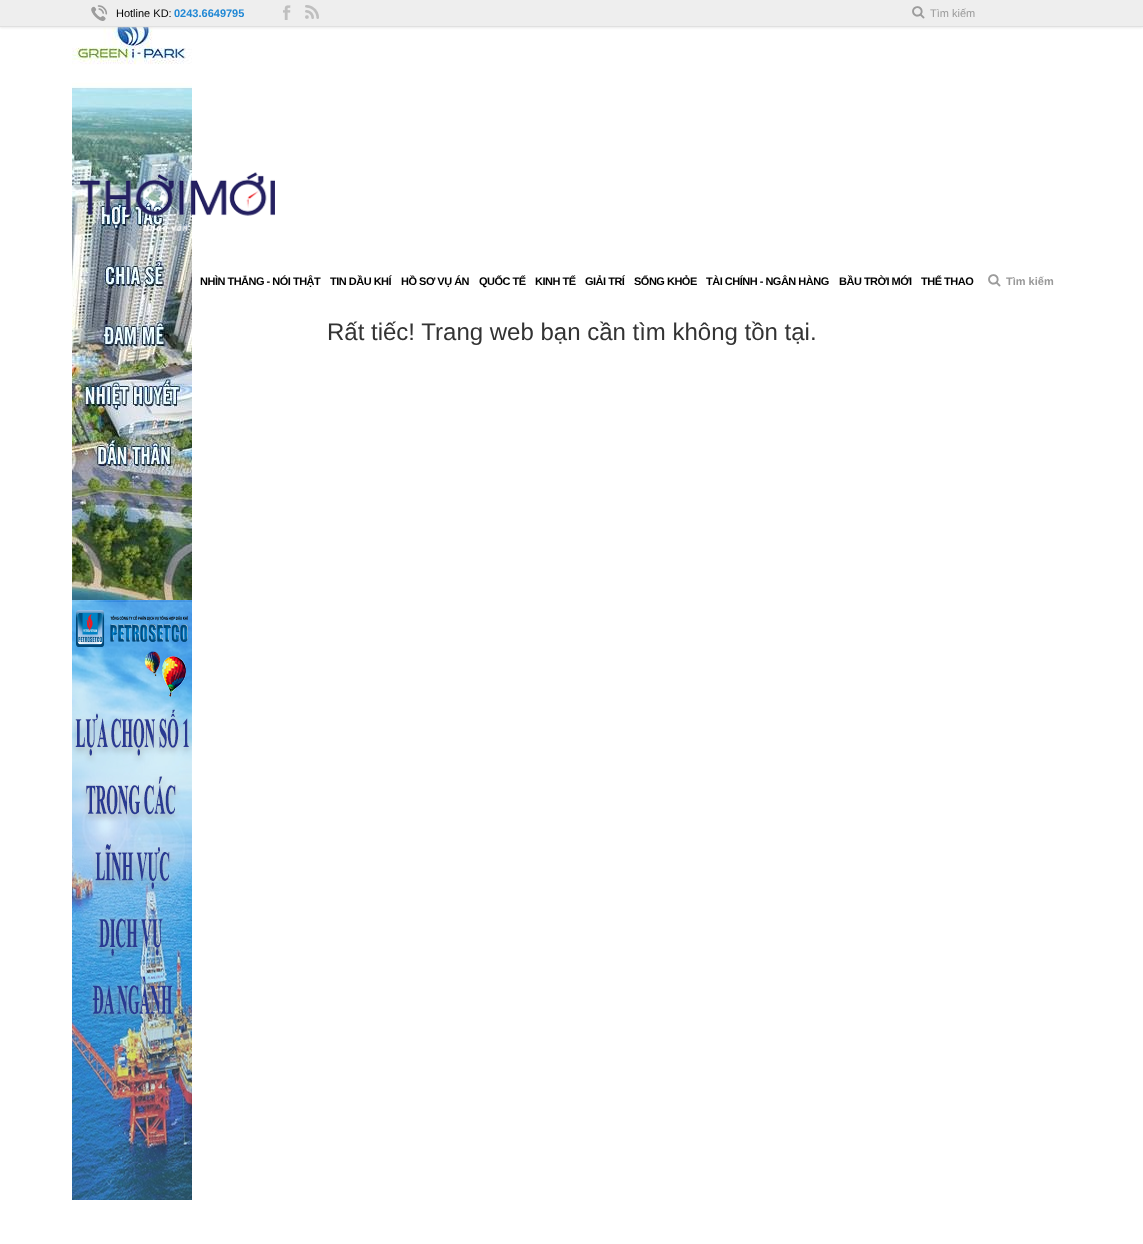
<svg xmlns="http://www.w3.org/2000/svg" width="1143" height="1244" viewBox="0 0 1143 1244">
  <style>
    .t1 { font: 11px Liberation Sans; fill: #000; }
    .t2 { font: bold 11px Liberation Sans; fill: #2088d5; }
    .t3 { font: 11px Liberation Sans; fill: #999; }
    .t4 { font: bold 11px Liberation Sans; letter-spacing: -0.5px; fill: #000; }
    .t5 { font: bold 11px Liberation Sans; fill: #999; }
    .t6 { font: 24px Liberation Sans; fill: #333; }
  </style>
  <rect width="100%" height="100%" fill="#fff"/>
  <image x="72" y="27" width="120" height="573" href="images/7.png"/>
  <rect x="0" y="1" width="1143" height="27" fill="#dededea3" filter="blur(1px)"/>
  <rect x="0" y="0" width="1143" height="26" fill="#eee"/>
  <rect x="0" y="26" width="1143" height="1" fill="#e0e0e0"/>
  <image x="91" y="5" width="17" height="16" href="images/1.png"/>
  <text x="116" y="17" class="t1">Hotline KD:</text>
  <text x="174" y="17" class="t2">0243.6649795</text>
  <image x="283" y="5" width="8" height="15" href="images/2.png"/>
  <image x="305" y="5" width="14" height="14" href="images/3.png"/>
  <image x="912" y="6" width="13" height="13" href="images/4.png"/>
  <text x="930" y="17" class="t3">Tìm kiếm</text>
  <image x="80" y="172" width="195" height="60" href="images/5.png"/>
  <text x="200" y="285" class="t4">NHÌN THẲNG - NÓI THẬT</text>
  <text x="330" y="285" class="t4">TIN DẦU KHÍ</text>
  <text x="401" y="285" class="t4">HỒ SƠ VỤ ÁN</text>
  <text x="479" y="285" class="t4">QUỐC TẾ</text>
  <text x="535" y="285" class="t4">KINH TẾ</text>
  <text x="585" y="285" class="t4">GIẢI TRÍ</text>
  <text x="634" y="285" class="t4">SỐNG KHỎE</text>
  <text x="706" y="285" class="t4">TÀI CHÍNH - NGÂN HÀNG</text>
  <text x="839" y="285" class="t4">BẦU TRỜI MỚI</text>
  <text x="921" y="285" class="t4">THỂ THAO</text>
  <image x="988" y="274" width="13" height="13" href="images/6.png"/>
  <text x="1006" y="285" class="t5">Tìm kiếm</text>
  <text x="327" y="340" class="t6">Rất tiếc! Trang web bạn cần tìm không tồn tại.</text>
  <image x="72" y="600" width="120" height="600" href="images/8.png"/>
</svg>
